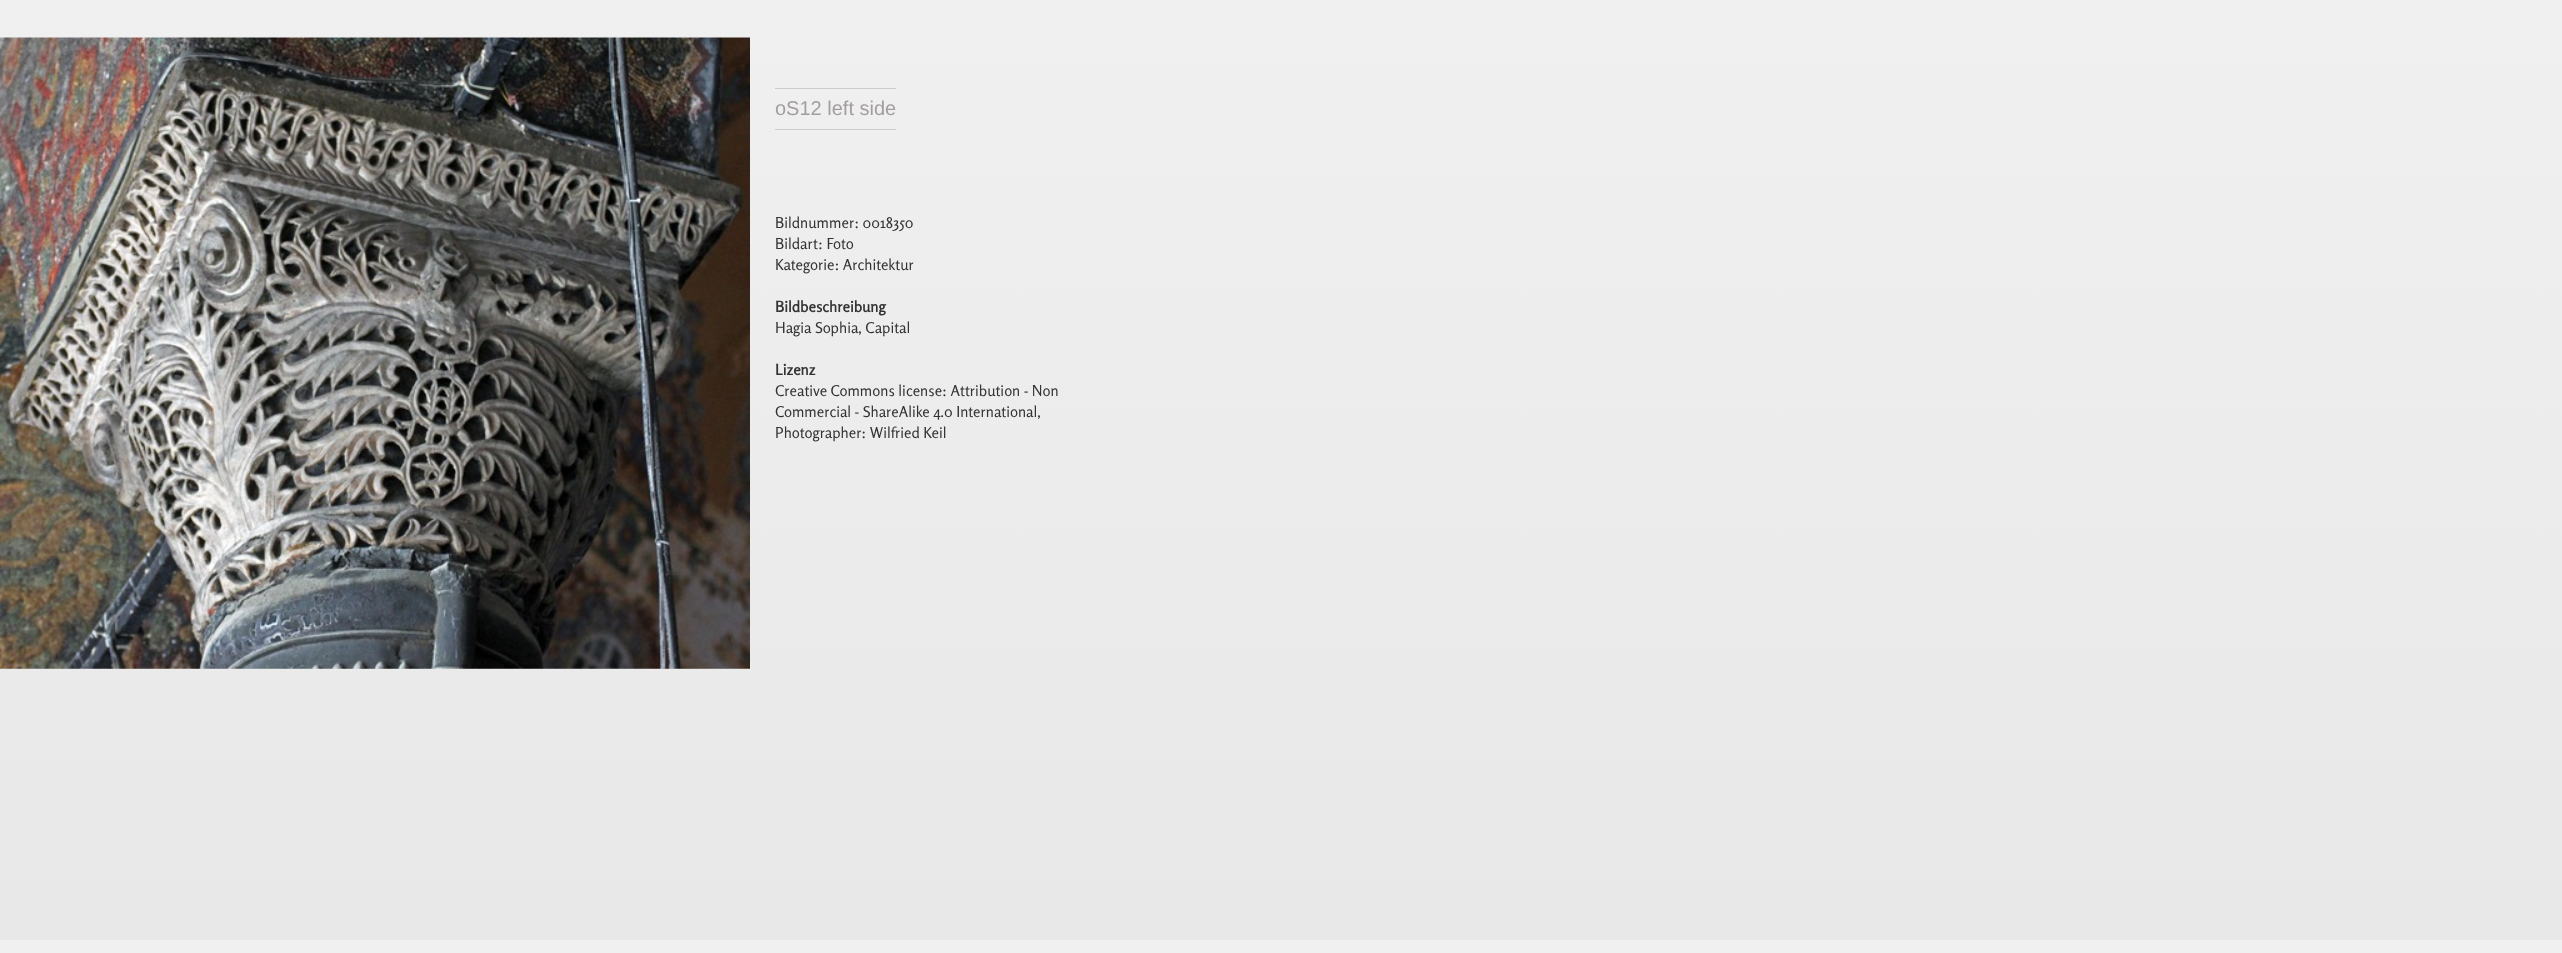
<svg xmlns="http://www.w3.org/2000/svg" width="2562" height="953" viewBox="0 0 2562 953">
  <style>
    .t1 { font: 20px Liberation Sans; fill: #a39e9e; }
    .t2 { font: 15px Rosario; fill: #333; }
    .t3 { font: bold 15px Rosario; fill: #333; }
  </style>
  <defs>
    <linearGradient id="g1" gradientUnits="userSpaceOnUse" x1="1281" y1="0" x2="1281" y2="940"><stop offset="0" stop-color="#f0f0f0"/><stop offset="1" stop-color="#e8e8e8"/></linearGradient>
    <linearGradient id="g2" gradientUnits="userSpaceOnUse" x1="1281" y1="940" x2="1281" y2="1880"><stop offset="0" stop-color="#f0f0f0"/><stop offset="1" stop-color="#e8e8e8"/></linearGradient>
  </defs>
  <rect width="100%" height="100%" fill="#fff"/>
  <rect x="0" y="0" width="2562" height="940" fill="url(#g1)"/>
  <rect x="0" y="940" width="2562" height="13" fill="url(#g2)"/>
  <image x="0" y="37" width="750" height="632" href="images/1.png"/>
  <rect x="775" y="88" width="121" height="1" fill="#ccc"/>
  <rect x="775" y="129" width="121" height="1" fill="#ccc"/>
  <text x="775" y="115" class="t1">oS12 left side</text>
  <text x="775" y="228" class="t2">Bildnummer: 0018350</text>
  <text x="775" y="249" class="t2">Bildart: Foto</text>
  <text x="775" y="270" class="t2">Kategorie: Architektur</text>
  <text x="775" y="312" class="t3">Bildbeschreibung</text>
  <text x="775" y="333" class="t2">Hagia Sophia, Capital</text>
  <text x="775" y="375" class="t3">Lizenz</text>
  <text x="775" y="396" class="t2">Creative Commons license: Attribution - Non</text>
  <text x="775" y="417" class="t2">Commercial - ShareAlike 4.0 International,</text>
  <text x="775" y="438" class="t2">Photographer: Wilfried Keil</text>
</svg>
